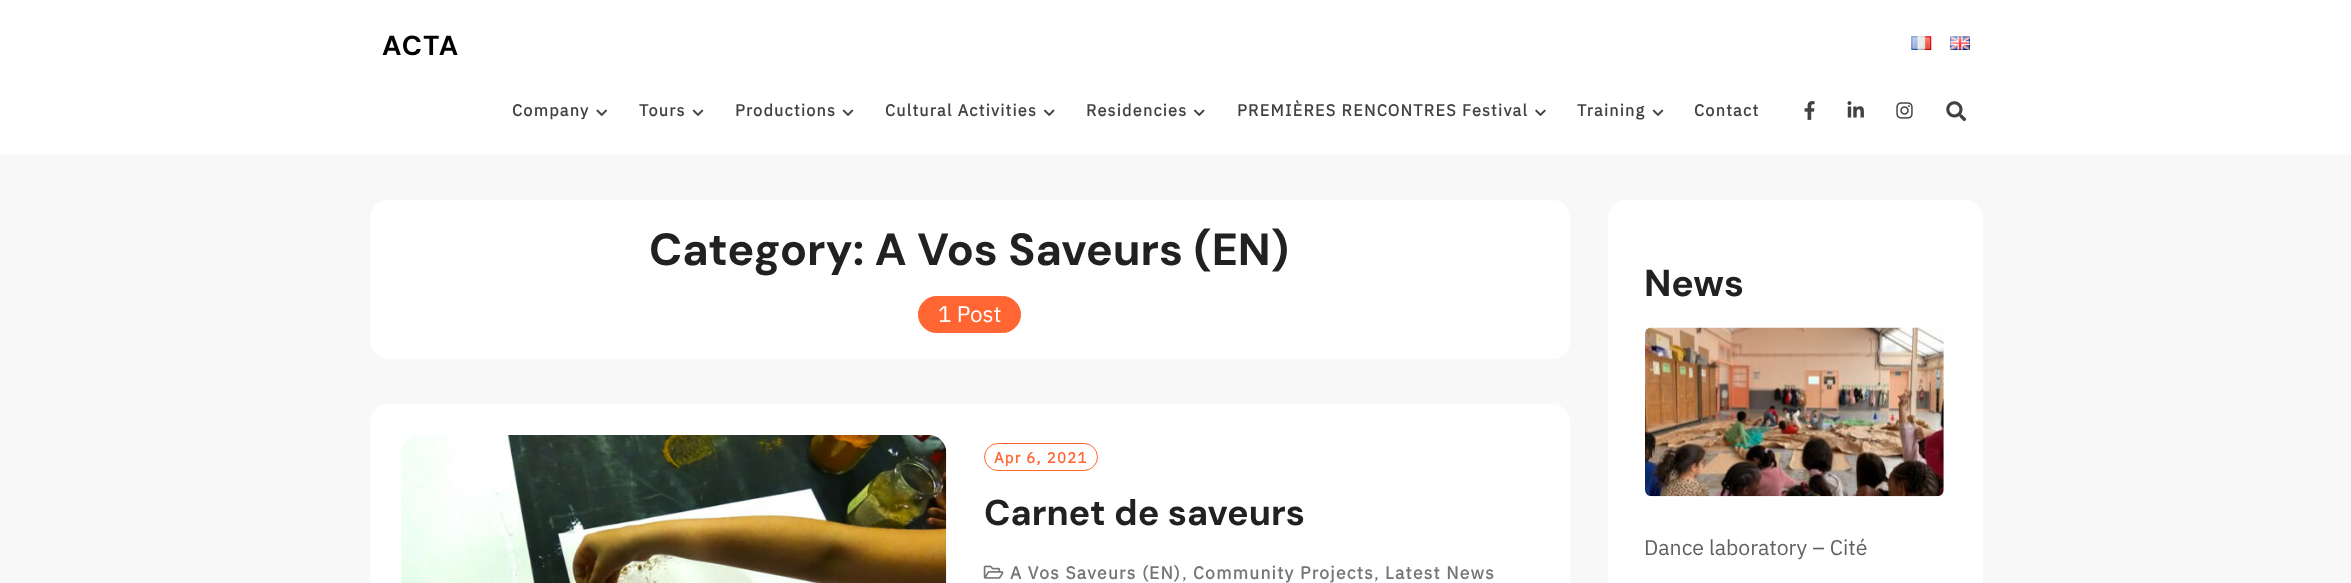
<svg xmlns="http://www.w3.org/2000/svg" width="2351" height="583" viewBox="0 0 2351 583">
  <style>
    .t1 { font: bold 27.5px DM Sans; letter-spacing: 1.25px; fill: #000; }
    .t2 { font: bold 16.25px IBM Plex Sans; letter-spacing: 1.25px; fill: #414141; }
    .t3 { font: bold 45px DM Sans; fill: #212121; }
    .t4 { font: 22.5px IBM Plex Sans; fill: #fff; }
    .t5 { font: bold 15px IBM Plex Sans; letter-spacing: 1.25px; fill: #ff6634; }
    .t6 { font: bold 36px DM Sans; fill: #212121; }
    .t7 { font: bold 17.5px IBM Plex Sans; letter-spacing: 1.25px; fill: #757575; }
    .t8 { font: 17.5px IBM Plex Sans; letter-spacing: 1.25px; fill: #757575; }
    .t9 { font: bold 37.5px DM Sans; fill: #212121; }
    .t10 { font: 21.25px IBM Plex Sans; fill: #616161; }
  </style>
  <rect width="100%" height="100%" fill="#f8f8f8"/>
  <rect x="0" y="0" width="2351" height="155" fill="#fff"/>
  <text x="382" y="55" class="t1">ACTA</text>
  <image x="1911" y="36" width="21" height="14" href="images/1.png"/>
  <image x="1950" y="36" width="20" height="14" href="images/2.png"/>
  <text x="512" y="116" class="t2">Company</text>
  <image x="596" y="109" width="11" height="7" href="images/3.png"/>
  <text x="639" y="116" class="t2">Tours</text>
  <image x="692" y="109" width="12" height="7" href="images/4.png"/>
  <text x="735" y="116" class="t2">Productions</text>
  <image x="842" y="109" width="12" height="7" href="images/4.png"/>
  <text x="885" y="116" class="t2">Cultural Activities</text>
  <image x="1043" y="109" width="12" height="7" href="images/5.png"/>
  <text x="1086" y="116" class="t2">Residencies</text>
  <image x="1193" y="109" width="12" height="7" href="images/5.png"/>
  <text x="1237" y="116" class="t2">PREMIÈRES RENCONTRES Festival</text>
  <image x="1535" y="109" width="11" height="7" href="images/6.png"/>
  <text x="1577" y="116" class="t2">Training</text>
  <image x="1652" y="109" width="12" height="7" href="images/4.png"/>
  <text x="1694" y="116" class="t2">Contact</text>
  <image x="1804" y="101" width="11" height="19" href="images/7.png"/>
  <image x="1847" y="101" width="17" height="17" href="images/8.png"/>
  <image x="1896" y="102" width="17" height="17" href="images/9.png"/>
  <image x="1946" y="101" width="21" height="21" href="images/10.png"/>
  <rect x="370" y="200" width="1200" height="159" rx="18" fill="#fff"/>
  <text x="649" y="265" class="t3">Category: A Vos Saveurs (EN)</text>
  <rect x="918.5" y="296.5" width="102" height="36" rx="18" fill="#ff6634" stroke="#ff6634"/>
  <text x="938" y="322" class="t4">1 Post</text>
  <rect x="370" y="404" width="1200" height="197" rx="18" fill="#fff"/>
  <image x="401" y="435" width="546" height="148" href="images/11.png"/>
  <rect x="984.5" y="443.5" width="113" height="27" rx="13.5" fill="none" stroke="#ff6634"/>
  <text x="994" y="463" class="t5">Apr 6, 2021</text>
  <text x="984" y="525" class="t6">Carnet de saveurs</text>
  <image x="983" y="565" width="21" height="14" href="images/12.png"/>
  <text x="1010" y="579" class="t7">A Vos Saveurs (EN)</text>
  <text x="1182" y="579" class="t8">,</text>
  <text x="1193" y="579" class="t7">Community Projects</text>
  <text x="1374" y="579" class="t8">,</text>
  <text x="1385" y="579" class="t7">Latest News</text>
  <rect x="1608" y="200" width="375" height="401" rx="18" fill="#fff"/>
  <text x="1644" y="296" class="t9">News</text>
  <image x="1645" y="327" width="299" height="170" href="images/13.png"/>
  <text x="1644" y="555" class="t10">Dance laboratory – Cité</text>
</svg>
